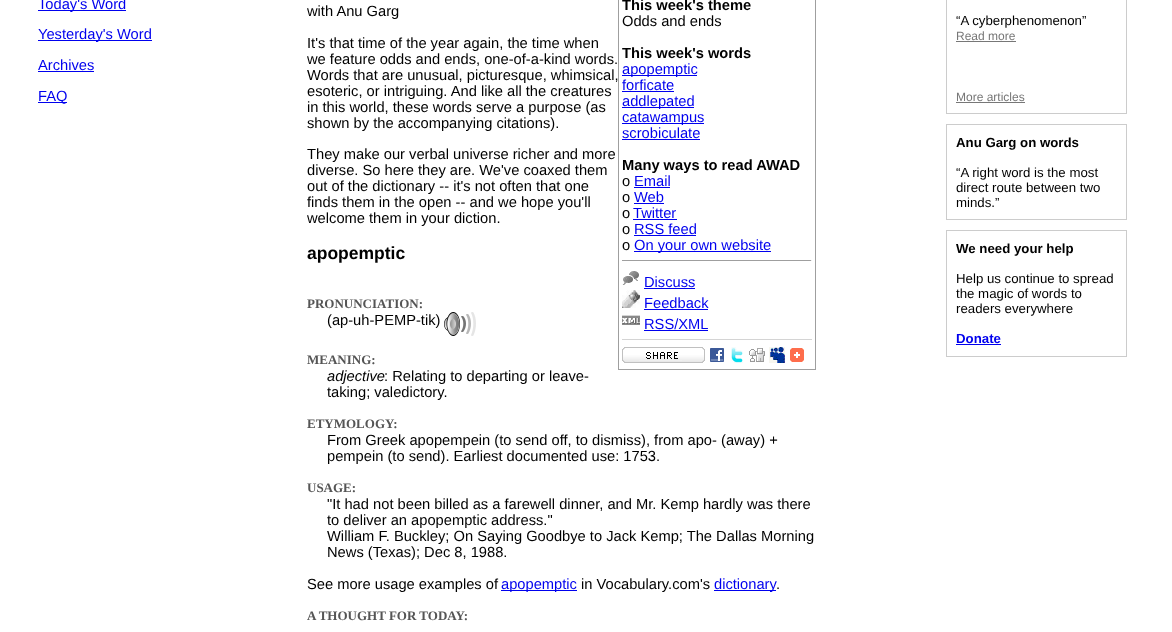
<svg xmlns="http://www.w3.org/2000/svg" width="1172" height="632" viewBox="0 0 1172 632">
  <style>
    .t1 { font: 14.7px Liberation Sans; fill: #00e; }
    .t2 { font: 14.7px Liberation Sans; fill: #000; }
    .t3 { font: bold 14.7px Liberation Sans; fill: #000; }
    .t4 { font: bold 17.5px Liberation Sans; fill: #000; }
    .t5 { font: bold 13px Liberation Serif; fill: #555; }
    .t6 { font: italic 14.7px Liberation Sans; fill: #000; }
    .t7 { font: 13.25px Liberation Sans; fill: #000; }
    .t8 { font: 12px Liberation Sans; fill: #777; }
    .t9 { font: bold 13.25px Liberation Sans; fill: #000; }
    .t10 { font: bold 13.25px Liberation Sans; fill: #00e; }
  </style>
  <rect width="100%" height="100%" fill="#fff"/>
  <rect x="38" y="10" width="88" height="1" fill="#00e"/>
  <text x="38" y="9" class="t1">Today's Word</text>
  <rect x="38" y="40" width="114" height="1" fill="#00e"/>
  <text x="38" y="39" class="t1">Yesterday's Word</text>
  <text x="38" y="70" class="t1">Archives</text>
  <rect x="38" y="71" width="56" height="1" fill="#00e"/>
  <rect x="38" y="102" width="29" height="1" fill="#00e"/>
  <text x="38" y="101" class="t1">FAQ</text>
  <text x="307" y="16" class="t2">with Anu Garg</text>
  <rect x="618.5" y="-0.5" width="197" height="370" fill="none" stroke="#9f9f9f"/>
  <text x="622" y="10" class="t3">This week's theme</text>
  <text x="622" y="26" class="t2">Odds and ends</text>
  <text x="622" y="58" class="t3">This week's words</text>
  <rect x="622" y="75" width="75" height="1" fill="#00e"/>
  <text x="622" y="74" class="t1">apopemptic</text>
  <text x="622" y="90" class="t1">forficate</text>
  <rect x="622" y="91" width="52" height="1" fill="#00e"/>
  <rect x="622" y="107" width="72" height="1" fill="#00e"/>
  <text x="622" y="106" class="t1">addlepated</text>
  <rect x="622" y="123" width="82" height="1" fill="#00e"/>
  <text x="622" y="122" class="t1">catawampus</text>
  <text x="622" y="138" class="t1">scrobiculate</text>
  <rect x="622" y="139" width="78" height="1" fill="#00e"/>
  <text x="622" y="170" class="t3">Many ways to read AWAD</text>
  <text x="622" y="186" class="t2">o</text>
  <text x="634" y="186" class="t1">Email</text>
  <rect x="634" y="187" width="36" height="1" fill="#00e"/>
  <text x="622" y="202" class="t2">o</text>
  <text x="634" y="202" class="t1">Web</text>
  <rect x="634" y="203" width="30" height="1" fill="#00e"/>
  <text x="622" y="218" class="t2">o</text>
  <text x="633" y="218" class="t1">Twitter</text>
  <rect x="633" y="219" width="44" height="1" fill="#00e"/>
  <text x="622" y="234" class="t2">o</text>
  <text x="634" y="234" class="t1">RSS feed</text>
  <rect x="634" y="235" width="62" height="1" fill="#00e"/>
  <text x="622" y="250" class="t2">o</text>
  <rect x="634" y="251" width="137" height="1" fill="#00e"/>
  <text x="634" y="250" class="t1">On your own website</text>
  <rect x="622" y="260" width="190" height="1" fill="#9f9f9f"/>
  <rect x="811" y="260" width="1" height="1" fill="#eee"/>
  <image x="622" y="271" width="17" height="14" href="images/1.png"/>
  <text x="644" y="287" class="t1">Discuss</text>
  <rect x="644" y="288" width="51" height="1" fill="#00e"/>
  <image x="622" y="290" width="18" height="18" href="images/2.png"/>
  <text x="644" y="308" class="t1">Feedback</text>
  <rect x="644" y="309" width="64" height="1" fill="#00e"/>
  <image x="622" y="315" width="18" height="10" href="images/3.png"/>
  <text x="644" y="329" class="t1">RSS/XML</text>
  <rect x="644" y="330" width="64" height="1" fill="#00e"/>
  <rect x="622" y="339" width="190" height="1" fill="#d4d4d4"/>
  <image x="622" y="347" width="83" height="16" href="images/4.png"/>
  <image x="710" y="348" width="14" height="14" href="images/5.png"/>
  <image x="731" y="347" width="12" height="16" href="images/6.png"/>
  <image x="749" y="348" width="16" height="14" href="images/7.png"/>
  <image x="769" y="347" width="16" height="16" href="images/8.png"/>
  <image x="790" y="348" width="14" height="14" href="images/9.png"/>
  <text x="307" y="48" class="t2">It's that time of the year again, the time when</text>
  <text x="307" y="64" class="t2">we feature odds and ends, one-of-a-kind words.</text>
  <text x="307" y="80" class="t2">Words that are unusual, picturesque, whimsical,</text>
  <text x="307" y="96" class="t2">esoteric, or intriguing. And like all the creatures</text>
  <text x="307" y="112" class="t2">in this world, these words serve a purpose (as</text>
  <text x="307" y="128" class="t2">shown by the accompanying citations).</text>
  <text x="307" y="159" class="t2">They make our verbal universe richer and more</text>
  <text x="307" y="175" class="t2">diverse. So here they are. We've coaxed them</text>
  <text x="307" y="191" class="t2">out of the dictionary -- it's not often that one</text>
  <text x="307" y="207" class="t2">finds them in the open -- and we hope you'll</text>
  <text x="307" y="223" class="t2">welcome them in your diction.</text>
  <text x="307" y="259" class="t4">apopemptic</text>
  <text x="307" y="308" class="t5">PRONUNCIATION:</text>
  <text x="327" y="325" class="t2">(ap-uh-PEMP-tik)</text>
  <image x="444" y="312" width="32" height="24" href="images/10.png"/>
  <text x="307" y="364" class="t5">MEANING:</text>
  <text x="327" y="381" class="t6">adjective</text>
  <text x="384" y="381" class="t2">: Relating to departing or leave-</text>
  <text x="327" y="397" class="t2">taking; valedictory.</text>
  <text x="307" y="428" class="t5">ETYMOLOGY:</text>
  <text x="327" y="445" class="t2">From Greek apopempein (to send off, to dismiss), from apo- (away) +</text>
  <text x="327" y="461" class="t2">pempein (to send). Earliest documented use: 1753.</text>
  <text x="307" y="492" class="t5">USAGE:</text>
  <text x="327" y="509" class="t2">"It had not been billed as a farewell dinner, and Mr. Kemp hardly was there</text>
  <text x="327" y="525" class="t2">to deliver an apopemptic address."</text>
  <text x="327" y="541" class="t2">William F. Buckley; On Saying Goodbye to Jack Kemp; The Dallas Morning</text>
  <text x="327" y="557" class="t2">News (Texas); Dec 8, 1988.</text>
  <text x="307" y="589" class="t2">See more usage examples of</text>
  <rect x="501" y="590" width="76" height="1" fill="#00e"/>
  <text x="501" y="589" class="t1">apopemptic</text>
  <text x="581" y="589" class="t2">in Vocabulary.com's</text>
  <rect x="714" y="590" width="62" height="1" fill="#00e"/>
  <text x="714" y="589" class="t1">dictionary</text>
  <text x="776" y="589" class="t2">.</text>
  <text x="307" y="620" class="t5">A THOUGHT FOR TODAY:</text>
  <rect x="946.5" y="-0.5" width="180" height="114" fill="none" stroke="#ccc"/>
  <text x="956" y="25" class="t7">“A cyberphenomenon”</text>
  <text x="956" y="40" class="t8">Read more</text>
  <rect x="956" y="41" width="60" height="1" fill="#777"/>
  <text x="956" y="101" class="t8">More articles</text>
  <rect x="956" y="102" width="69" height="1" fill="#777"/>
  <rect x="946.5" y="124.5" width="180" height="95" fill="none" stroke="#ccc"/>
  <text x="956" y="147" class="t9">Anu Garg on words</text>
  <text x="956" y="177" class="t7">“A right word is the most</text>
  <text x="956" y="192" class="t7">direct route between two</text>
  <text x="956" y="207" class="t7">minds.”</text>
  <rect x="946.5" y="230.5" width="180" height="126" fill="none" stroke="#ccc"/>
  <text x="956" y="253" class="t9">We need your help</text>
  <text x="956" y="283" class="t7">Help us continue to spread</text>
  <text x="956" y="298" class="t7">the magic of words to</text>
  <text x="956" y="313" class="t7">readers everywhere</text>
  <text x="956" y="343" class="t10">Donate</text>
  <rect x="956" y="344" width="45" height="1" fill="#00e"/>
</svg>
